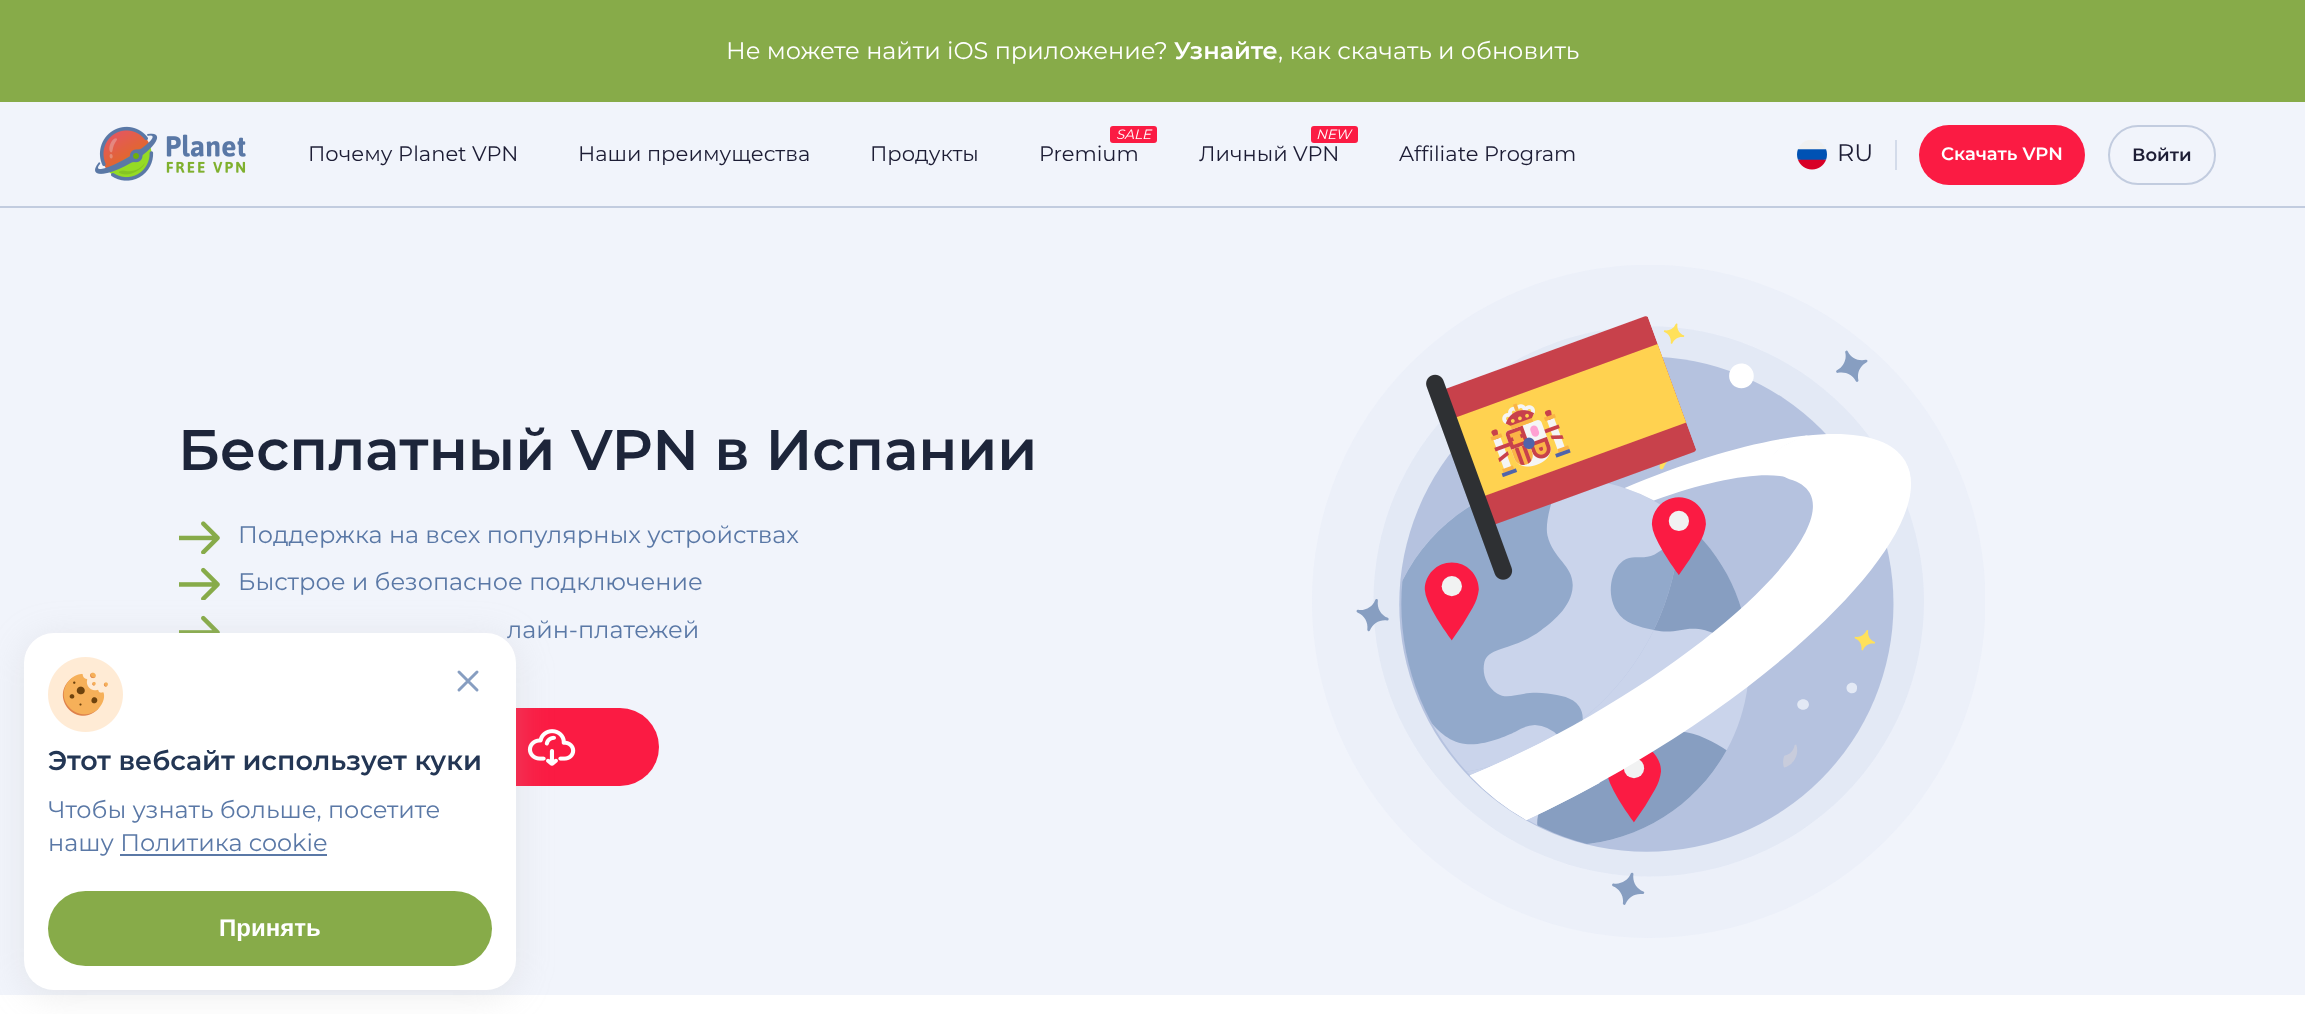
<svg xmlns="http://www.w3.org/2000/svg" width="2305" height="1014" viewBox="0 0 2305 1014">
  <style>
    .t1 { font: 24px Montserrat; fill: #fff; }
    .t2 { font: 600 24px Montserrat; fill: #fff; }
    .t3 { font: 21px Montserrat; fill: #1d1d35; }
    .t4 { font: italic 13.5px Montserrat; fill: #fff; }
    .t5 { font: 24px Montserrat; fill: #1d1d35; }
    .t6 { font: 600 18px Montserrat; fill: #fff; }
    .t7 { font: 600 18px Montserrat; fill: #1d1d35; }
    .t8 { font: 600 57px Montserrat; fill: #1d253a; }
    .t9 { font: 24px Montserrat; fill: #5a78a6; }
    .t10 { font: 600 27px Montserrat; fill: #233654; }
    .t11 { font: bold 24px Liberation Sans; fill: #fff; }
  </style>
  <rect width="100%" height="100%" fill="#fff"/>
  <rect x="0" y="0" width="2305" height="102" fill="#87ab49"/>
  <text x="726" y="59" class="t1">Не можете найти iOS приложение?</text>
  <text x="1174" y="59" class="t2">Узнайте</text>
  <text x="1278" y="59" class="t1">, как скачать и обновить</text>
  <rect x="0" y="102" width="2305" height="104" fill="#f1f4fb"/>
  <rect x="0" y="206" width="2305" height="2" fill="#c2ccdf"/>
  <image x="95" y="126" width="151" height="55" href="images/1.png"/>
  <text x="308" y="161" class="t3">Почему Planet VPN</text>
  <text x="578" y="161" class="t3">Наши преимущества</text>
  <text x="870" y="161" class="t3">Продукты</text>
  <rect x="1110" y="126" width="47" height="17" rx="3" fill="#fb1b43"/>
  <text x="1116" y="139" class="t4">SALE</text>
  <text x="1039" y="161" class="t3">Premium</text>
  <rect x="1311" y="126" width="47" height="17" rx="3" fill="#fb1b43"/>
  <text x="1316" y="139" class="t4">NEW</text>
  <text x="1199" y="161" class="t3">Личный VPN</text>
  <text x="1399" y="161" class="t3">Affiliate Program</text>
  <rect x="1895" y="140" width="2" height="30" fill="#d3dbea"/>
  <image x="1797" y="140" width="30" height="30" href="images/2.png"/>
  <text x="1837" y="161" class="t5">RU</text>
  <rect x="1919" y="125" width="166" height="60" rx="30" fill="#fb1b43"/>
  <text x="1941" y="160" class="t6">Скачать VPN</text>
  <rect x="2109" y="126" width="106" height="58" rx="29" fill="none" stroke="#c2ccdf" stroke-width="2"/>
  <text x="2132" y="161" class="t7">Войти</text>
  <rect x="0" y="208" width="2305" height="787" fill="#f1f4fb"/>
  <text x="178" y="470" class="t8">Бесплатный VPN в Испании</text>
  <image x="1312" y="265" width="673" height="673" href="images/3.png"/>
  <image x="1426" y="316" width="270" height="264" href="images/4.png"/>
  <image x="179" y="521" width="41" height="33" href="images/5.png"/>
  <text x="238" y="543" class="t9">Поддержка на всех популярных устройствах</text>
  <image x="179" y="567" width="41" height="33" href="images/6.png"/>
  <text x="238" y="590" class="t9">Быстрое и безопасное подключение</text>
  <image x="179" y="615" width="41" height="18" href="images/7.png"/>
  <text x="507" y="638" class="t9">лайн-платежей</text>
  <rect x="179" y="708" width="480" height="78" rx="39" fill="#fb1b43"/>
  <image x="527" y="729" width="49" height="37" href="images/8.png"/>
  <rect x="24" y="639" width="492" height="357" rx="30" fill="#b7b7b740" filter="blur(18px)"/>
  <rect x="24" y="633" width="492" height="357" rx="30" fill="#fff"/>
  <image x="48" y="657" width="75" height="75" href="images/9.png"/>
  <path d="M477 672L459 690M459 672L477 690" fill="none" stroke="#879ec1" stroke-width="3" stroke-linecap="round" stroke-linejoin="round"/>
  <text x="48" y="770" class="t10">Этот вебсайт использует куки</text>
  <text x="48" y="818" class="t9">Чтобы узнать больше, посетите</text>
  <text x="48" y="851" class="t9">нашу Политика cookie</text>
  <rect x="120" y="854" width="207" height="2" fill="#5a78a6"/>
  <rect x="48" y="891" width="444" height="75" rx="37.5" fill="#87ab49"/>
  <text x="219" y="936" class="t11">Принять</text>
</svg>
